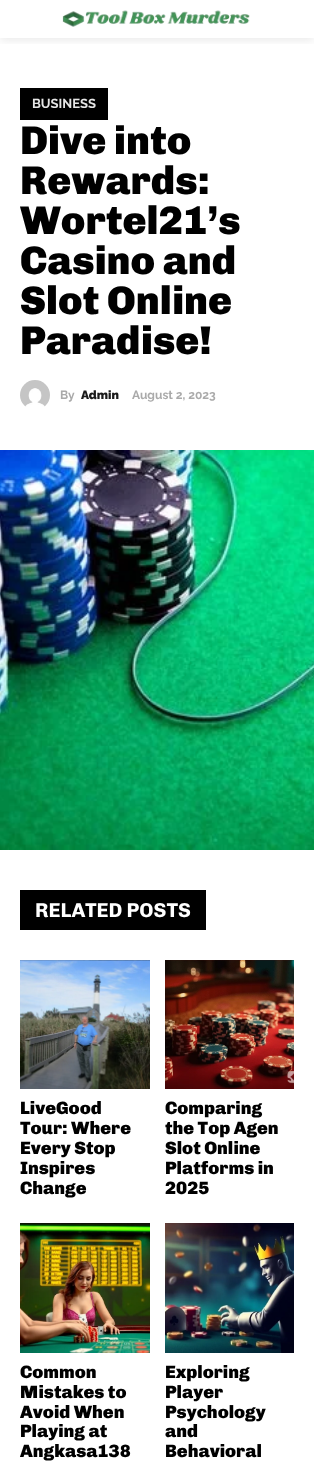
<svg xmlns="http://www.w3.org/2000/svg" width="314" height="1468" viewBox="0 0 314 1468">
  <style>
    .t1 { font: bold 13px Raleway; fill: #e6e6e6; }
    .t2 { font: 900 40px Chivo; fill: #000; }
    .t3 { font: bold 12px Raleway; fill: #aaa; }
    .t4 { font: 900 12px Raleway; fill: #1a1a1a; }
    .t5 { font: bold 20px Chivo; fill: #fff; }
    .t6 { font: 900 18px Chivo; fill: #000; }
  </style>
  <defs>
    <clipPath id="clip1"><rect x="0" y="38" width="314" height="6"/></clipPath>
  </defs>
  <rect width="100%" height="100%" fill="#fff"/>
  <image x="62" y="10" width="188" height="17" href="images/1.png"/>
  <g clip-path="url(#clip1)">
    <rect x="0" y="2" width="314" height="38" fill="#00000017" filter="blur(5px)"/>
  </g>
  <rect x="20" y="88" width="88" height="32" fill="#000"/>
  <text x="32" y="108" class="t1">BUSINESS</text>
  <text x="20" y="154" class="t2">Dive into</text>
  <text x="20" y="194" class="t2">Rewards:</text>
  <text x="20" y="234" class="t2">Wortel21’s</text>
  <text x="20" y="274" class="t2">Casino and</text>
  <text x="20" y="314" class="t2">Slot Online</text>
  <text x="20" y="354" class="t2">Paradise!</text>
  <image x="20" y="380" width="30" height="27" href="images/2.png"/>
  <text x="60" y="399" class="t3">By</text>
  <text x="81" y="399" class="t4">Admin</text>
  <text x="132" y="399" class="t3">August 2, 2023</text>
  <image x="0" y="450" width="314" height="400" href="images/3.png"/>
  <rect x="20" y="890" width="186" height="40" fill="#000"/>
  <text x="35" y="917" class="t5">RELATED POSTS</text>
  <image x="20" y="960" width="130" height="129" href="images/4.png"/>
  <text x="20" y="1114" class="t6">LiveGood</text>
  <text x="20" y="1134" class="t6">Tour: Where</text>
  <text x="20" y="1154" class="t6">Every Stop</text>
  <text x="20" y="1174" class="t6">Inspires</text>
  <text x="20" y="1194" class="t6">Change</text>
  <image x="165" y="960" width="129" height="129" href="images/5.png"/>
  <text x="165" y="1114" class="t6">Comparing</text>
  <text x="165" y="1134" class="t6">the Top Agen</text>
  <text x="165" y="1154" class="t6">Slot Online</text>
  <text x="165" y="1174" class="t6">Platforms in</text>
  <text x="165" y="1194" class="t6">2025</text>
  <image x="20" y="1223" width="130" height="130" href="images/6.png"/>
  <text x="20" y="1378" class="t6">Common</text>
  <text x="20" y="1398" class="t6">Mistakes to</text>
  <text x="20" y="1418" class="t6">Avoid When</text>
  <text x="20" y="1437" class="t6">Playing at</text>
  <text x="20" y="1457" class="t6">Angkasa138</text>
  <image x="165" y="1223" width="129" height="130" href="images/7.png"/>
  <text x="165" y="1378" class="t6">Exploring</text>
  <text x="165" y="1398" class="t6">Player</text>
  <text x="165" y="1418" class="t6">Psychology</text>
  <text x="165" y="1437" class="t6">and</text>
  <text x="165" y="1457" class="t6">Behavioral</text>
</svg>
